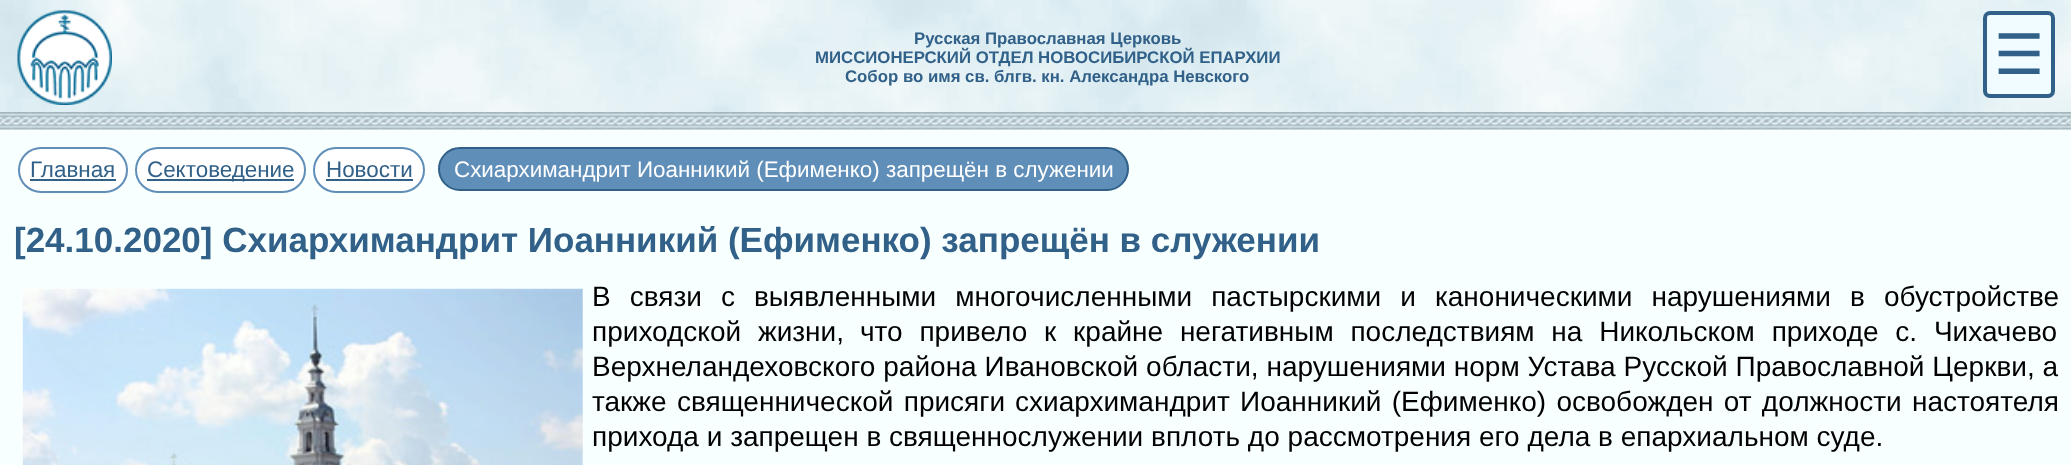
<svg xmlns="http://www.w3.org/2000/svg" width="2071" height="465" viewBox="0 0 2071 465">
  <style>
    .t1 { font: bold 16.8px Liberation Sans; fill: #316088; }
    .t2 { font: 56px DejaVu Sans; fill: #316088; }
    .t3 { font: 22.4px Liberation Sans; fill: #316088; }
    .t4 { font: 22.4px Liberation Sans; fill: #fff; }
    .t5 { font: bold 35px Liberation Sans; fill: #316088; }
    .t6 { font: 28px Liberation Sans; fill: #000; }
  </style>
  <rect width="100%" height="100%" fill="#fff"/>
  <image x="0" y="0" width="2071" height="130" href="images/1.png"/>
  <image x="17" y="10" width="95" height="95" href="images/2.png"/>
  <text x="914" y="44" class="t1">Русская Православная Церковь</text>
  <text x="815" y="63" class="t1">МИССИОНЕРСКИЙ ОТДЕЛ НОВОСИБИРСКОЙ ЕПАРХИИ</text>
  <text x="845" y="82" class="t1">Собор во имя св. блгв. кн. Александра Невского</text>
  <rect x="1985" y="13" width="68" height="83" rx="5" fill="#f0fcff" stroke="#316088" stroke-width="4"/>
  <text x="1994" y="74" class="t2">☰</text>
  <rect x="0" y="130" width="2071" height="335" fill="#f8ffff"/>
  <rect x="19" y="148" width="108" height="44" rx="22" fill="#fff" stroke="#5f8eb8" stroke-width="2"/>
  <text x="30" y="177" class="t3">Главная</text>
  <rect x="30" y="179" width="86" height="2" fill="#316088"/>
  <rect x="136" y="148" width="169" height="44" rx="22" fill="#fff" stroke="#5f8eb8" stroke-width="2"/>
  <rect x="147" y="179" width="147" height="2" fill="#316088"/>
  <text x="147" y="177" class="t3">Сектоведение</text>
  <rect x="314" y="148" width="110" height="44" rx="22" fill="#fff" stroke="#5f8eb8" stroke-width="2"/>
  <text x="326" y="177" class="t3">Новости</text>
  <rect x="326" y="179" width="87" height="2" fill="#316088"/>
  <rect x="439" y="148" width="689" height="42" rx="21" fill="#5f8eb8" stroke="#316088" stroke-width="2"/>
  <text x="454" y="177" class="t4">Схиархимандрит Иоанникий (Ефименко) запрещён в служении</text>
  <text x="14" y="252" class="t5">[24.10.2020] Схиархимандрит Иоанникий (Ефименко) запрещён в служении</text>
  <image x="22" y="288" width="561" height="177" href="images/3.png"/>
  <text x="592" y="306" word-spacing="11.25" class="t6">В связи с выявленными многочисленными пастырскими и каноническими нарушениями в обустройстве</text>
  <text x="592" y="341" word-spacing="9" class="t6">приходской жизни,</text>
  <text x="860" y="341" word-spacing="9" class="t6">что привело к крайне негативным последствиям на Никольском приходе с. Чихачево</text>
  <text x="592" y="376" word-spacing="0.1" class="t6">Верхнеландеховского района Ивановской области, нарушениями норм Устава Русской Православной Церкви, а</text>
  <text x="592" y="411" word-spacing="2.5" class="t6">также священнической присяги</text>
  <text x="1015" y="411" word-spacing="2.5" class="t6">схиархимандрит Иоанникий (Ефименко) освобожден от должности настоятеля</text>
  <text x="592" y="446" class="t6">прихода и запрещен в священнослужении вплоть до рассмотрения его дела в епархиальном суде.</text>
</svg>
